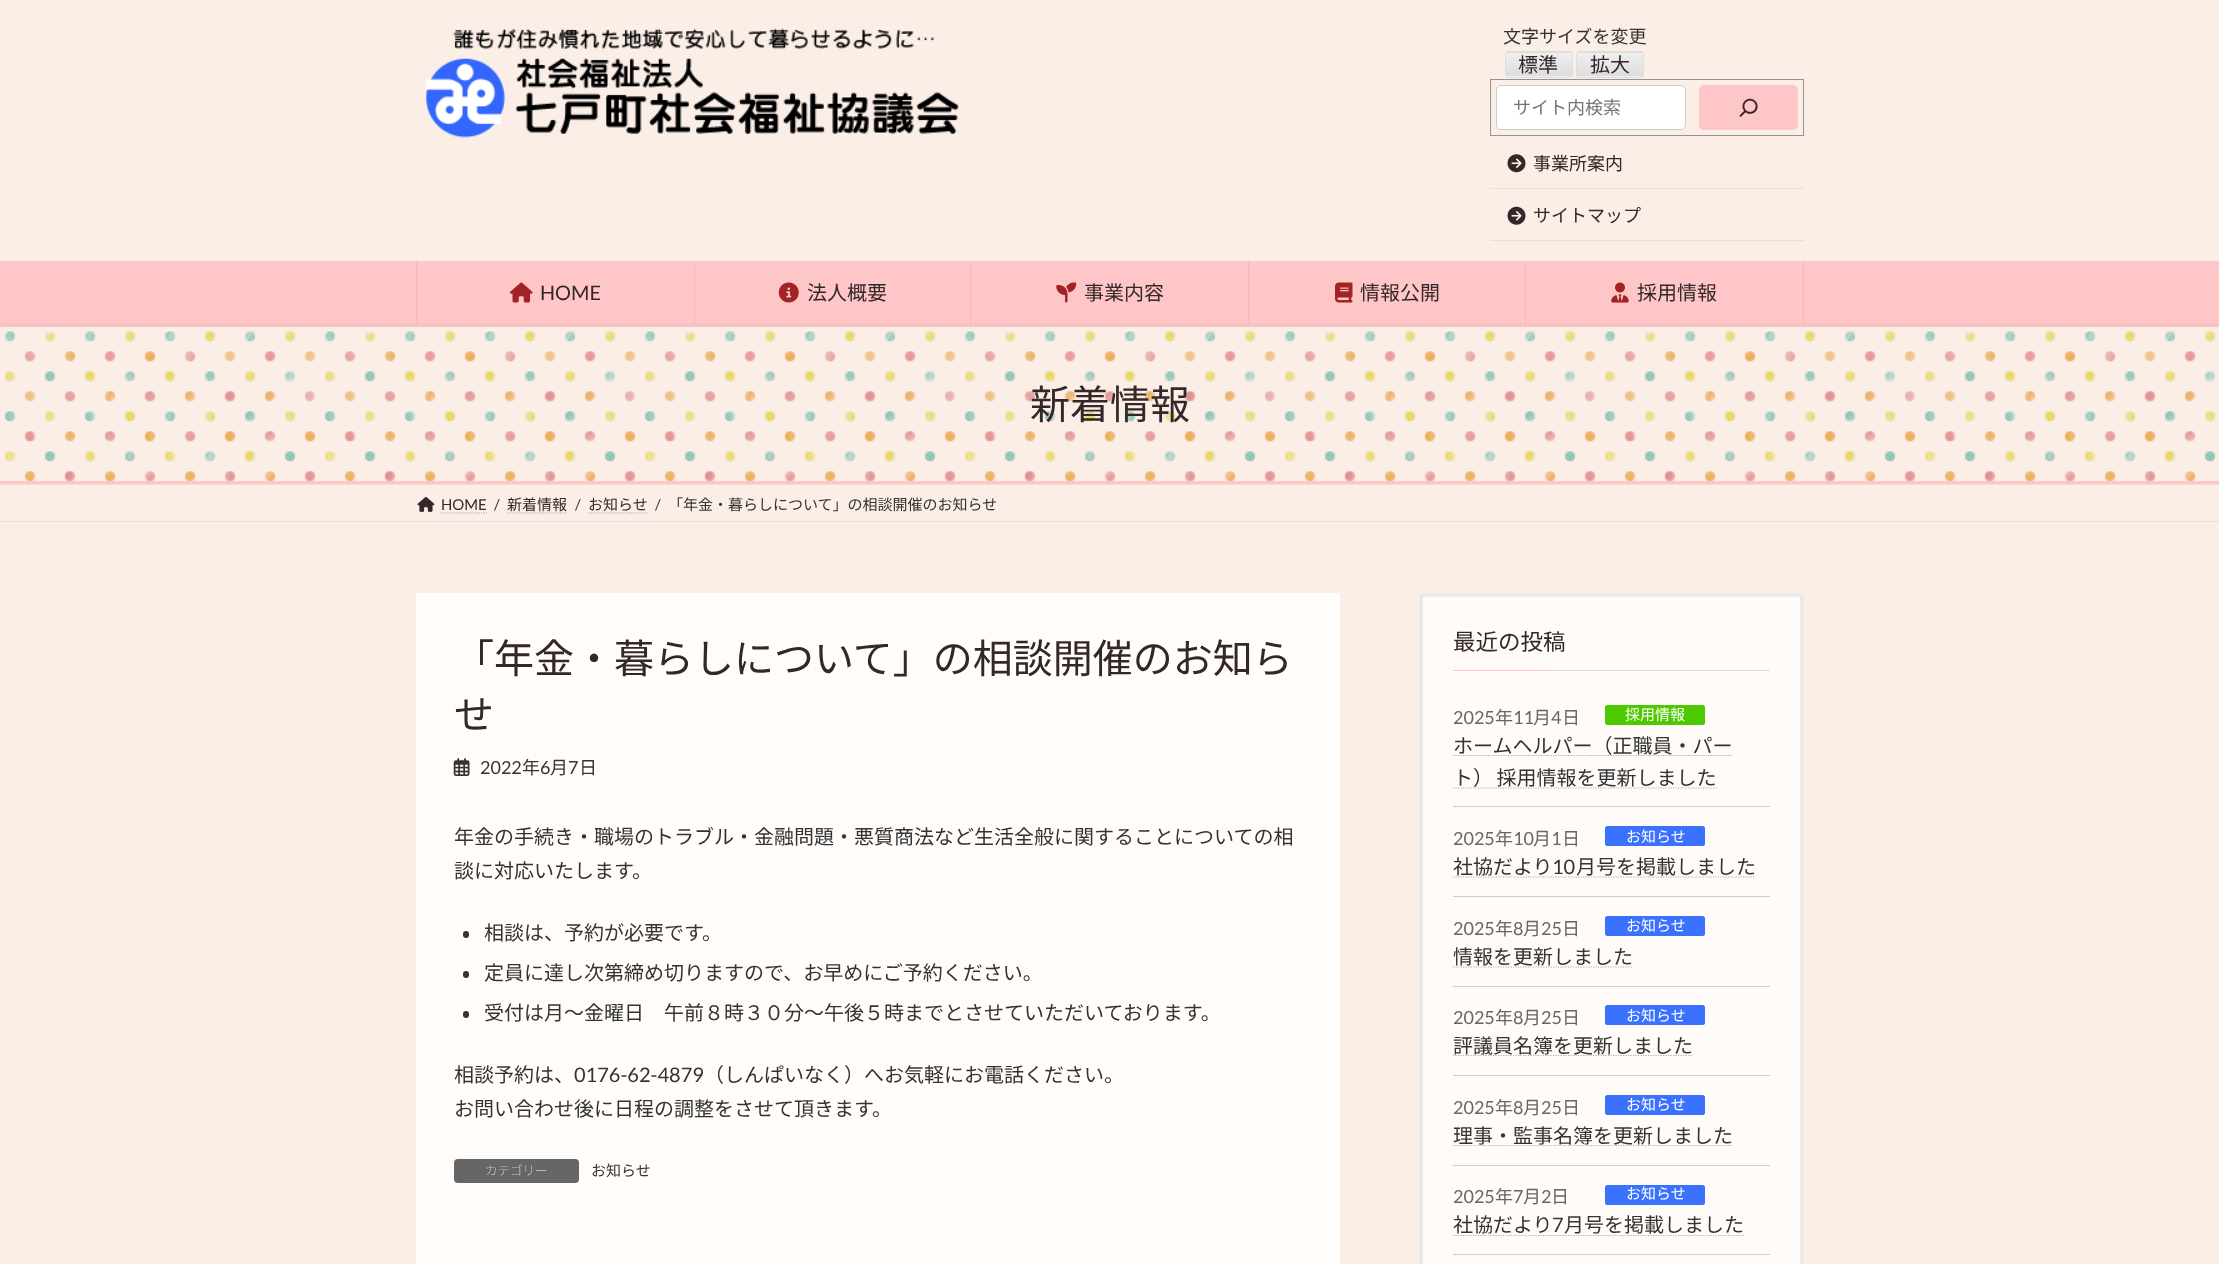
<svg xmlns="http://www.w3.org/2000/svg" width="2219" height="1264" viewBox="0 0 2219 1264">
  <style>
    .t1 { font: 18px Noto Sans JP; fill: #333; }
    .t2 { font: 20px Noto Sans JP; fill: #33272a; }
    .t3 { font: 18px Noto Sans JP; fill: #757575; }
    .t4 { font: 18px Noto Sans JP; fill: #33272a; }
    .t5 { font: 20px Lato; fill: #33272a; }
    .t6 { font: 40px Noto Sans JP; fill: #33272a; }
    .t7 { font: 15px Lato; fill: #33272a; }
    .t8 { font: 15px Lato; fill: #333; }
    .t9 { font: 15px Noto Sans JP; fill: #33272a; }
    .t10 { font: 15px Noto Sans JP; fill: #333; }
    .t11 { font: 18px Lato; fill: #333; }
    .t12 { font: 20px Noto Sans JP; fill: #333; }
    .t13 { font: 20px Lato; fill: #333; }
    .t14 { font: 100 12.5px Noto Sans JP; fill: #fff; }
    .t15 { font: 22.5px Noto Sans JP; fill: #33272a; }
    .t16 { font: 18px Lato; fill: #666; }
    .t17 { font: 18px Noto Sans JP; fill: #666; }
    .t18 { font: 15px Noto Sans JP; fill: #fff; }
  </style>
  <defs>
    <clipPath id="clip1"><rect x="1505" y="51" width="68" height="27" rx="4"/></clipPath>
    <linearGradient id="g1" gradientUnits="userSpaceOnUse" x1="1539" y1="53" x2="1539" y2="76"><stop offset="0" stop-color="#efefef"/><stop offset="1" stop-color="#ddd"/></linearGradient>
    <linearGradient id="g2" gradientUnits="userSpaceOnUse" x1="1539" y1="29" x2="1539" y2="53"><stop offset="0" stop-color="#efefef"/><stop offset="1" stop-color="#ddd"/></linearGradient>
    <linearGradient id="g3" gradientUnits="userSpaceOnUse" x1="1539" y1="76" x2="1539" y2="100"><stop offset="0" stop-color="#efefef"/><stop offset="1" stop-color="#ddd"/></linearGradient>
    <clipPath id="clip2"><rect x="1576" y="51" width="68" height="27" rx="4"/></clipPath>
    <linearGradient id="g4" gradientUnits="userSpaceOnUse" x1="1610" y1="53" x2="1610" y2="76"><stop offset="0" stop-color="#efefef"/><stop offset="1" stop-color="#ddd"/></linearGradient>
    <linearGradient id="g5" gradientUnits="userSpaceOnUse" x1="1610" y1="29" x2="1610" y2="53"><stop offset="0" stop-color="#efefef"/><stop offset="1" stop-color="#ddd"/></linearGradient>
    <linearGradient id="g6" gradientUnits="userSpaceOnUse" x1="1610" y1="76" x2="1610" y2="100"><stop offset="0" stop-color="#efefef"/><stop offset="1" stop-color="#ddd"/></linearGradient>
  </defs>
  <rect width="100%" height="100%" fill="#faeee7"/>
  <image x="4" y="331" width="2212" height="150" href="images/10.png"/>
  <rect x="0" y="324" width="2219" height="3" fill="#ffc6c7"/>
  <rect x="0" y="1" width="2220" height="324" fill="#0000000d" filter="blur(2px)"/>
  <rect x="0" y="0" width="2219" height="261" fill="#faeee7"/>
  <image x="426" y="28" width="533" height="110" href="images/1.png"/>
  <text x="1503" y="43" class="t1">文字サイズを変更</text>
  <g clip-path="url(#clip1)">
    <rect x="1505" y="53" width="68" height="23" fill="url(#g1)"/>
    <rect x="1505" y="51" width="68" height="2" fill="url(#g2)"/>
    <rect x="1505" y="76" width="68" height="2" fill="url(#g3)"/>
  </g>
  <rect x="1505.5" y="51.5" width="67" height="26" rx="3.5" fill="none" stroke="#ddd"/>
  <text x="1518" y="72" class="t2">標準</text>
  <g clip-path="url(#clip2)">
    <rect x="1576" y="53" width="68" height="23" fill="url(#g4)"/>
    <rect x="1576" y="51" width="68" height="2" fill="url(#g5)"/>
    <rect x="1576" y="76" width="68" height="2" fill="url(#g6)"/>
  </g>
  <rect x="1576.5" y="51.5" width="67" height="26" rx="3.5" fill="none" stroke="#ddd"/>
  <text x="1590" y="72" class="t2">拡大</text>
  <rect x="1490.5" y="79.5" width="313" height="56" fill="none" stroke="#949494"/>
  <rect x="1496.5" y="85.5" width="189" height="44" rx="4.5" fill="#fff" stroke="#ccc"/>
  <text x="1513" y="114" class="t3">サイト内検索</text>
  <rect x="1699" y="85" width="99" height="45" rx="5" fill="#ffc6c7"/>
  <image x="1739" y="98" width="19" height="19" href="images/2.png"/>
  <rect x="1490" y="188" width="314" height="1" fill="#ebe0d9"/>
  <image x="1507" y="154" width="19" height="19" href="images/3.png"/>
  <text x="1533" y="170" class="t4">事業所案内</text>
  <rect x="1490" y="240" width="314" height="1" fill="#ebe0d9"/>
  <image x="1507" y="206" width="19" height="19" href="images/4.png"/>
  <text x="1533" y="222" class="t4">サイトマップ</text>
  <rect x="0" y="261" width="2219" height="63" fill="#ffc6c7"/>
  <rect x="694" y="261" width="1" height="63" fill="#f0babb"/>
  <rect x="416" y="261" width="1" height="63" fill="#f0babb"/>
  <image x="510" y="282" width="23" height="21" href="images/5.png"/>
  <text x="540" y="300" class="t5">HOME</text>
  <rect x="970" y="261" width="1" height="63" fill="#f0babb"/>
  <image x="778" y="282" width="21" height="21" href="images/6.png"/>
  <text x="807" y="300" class="t2">法人概要</text>
  <rect x="1248" y="261" width="1" height="63" fill="#f0babb"/>
  <image x="1056" y="282" width="21" height="21" href="images/7.png"/>
  <text x="1084" y="300" class="t2">事業内容</text>
  <rect x="1525" y="261" width="1" height="63" fill="#f0babb"/>
  <image x="1335" y="282" width="18" height="21" href="images/8.png"/>
  <text x="1360" y="300" class="t2">情報公開</text>
  <rect x="1803" y="261" width="1" height="63" fill="#f0babb"/>
  <image x="1611" y="282" width="18" height="21" href="images/9.png"/>
  <text x="1637" y="300" class="t2">採用情報</text>
  <rect x="0" y="481" width="2219" height="3" fill="#ffc6c7"/>
  <text x="1030" y="419" class="t6">新着情報</text>
  <rect x="0" y="484" width="2219" height="1" fill="#ebe0d9"/>
  <rect x="0" y="521" width="2219" height="1" fill="#ebe0d9"/>
  <image x="417" y="496" width="18" height="16" href="images/11.png"/>
  <text x="441" y="510" class="t7">HOME</text>
  <path d="M441 513H487" fill="none" stroke="#afa7a2" stroke-width="1.2" stroke-dasharray="1.25 1.25"/>
  <text x="494" y="510" class="t8">/</text>
  <text x="507" y="510" class="t9">新着情報</text>
  <path d="M507.5 513H567.5" fill="none" stroke="#afa7a2" stroke-width="1.2" stroke-dasharray="1.25 1.25"/>
  <text x="575" y="510" class="t8">/</text>
  <text x="588" y="510" class="t9">お知らせ</text>
  <path d="M588 513H648" fill="none" stroke="#afa7a2" stroke-width="1.2" stroke-dasharray="1.25 1.25"/>
  <text x="655" y="510" class="t8">/</text>
  <text x="668" y="510" class="t10">「年金・暮らしについて」の相談開催のお知らせ</text>
  <rect x="416" y="593" width="924" height="671" fill="#fffcfa"/>
  <text x="454" y="673" class="t6">「年金・暮らしについて」の相談開催のお知ら</text>
  <text x="454" y="729" class="t6">せ</text>
  <image x="453" y="758" width="17" height="18" href="images/12.png"/>
  <text x="480" y="774" class="t11">2022</text>
  <text x="522" y="774" class="t1">年</text>
  <text x="540" y="774" class="t11">6</text>
  <text x="550" y="774" class="t1">月</text>
  <text x="568" y="774" class="t11">7</text>
  <text x="579" y="774" class="t1">日</text>
  <text x="454" y="844" class="t12">年金の手続き・職場のトラブル・金融問題・悪質商法など生活全般に関することについての相</text>
  <text x="454" y="878" class="t12">談に対応いたします。</text>
  <rect x="463" y="931" width="6" height="7" rx="3" fill="#333"/>
  <text x="484" y="940" class="t12">相談は、予約が必要です。</text>
  <rect x="463" y="971" width="6" height="7" rx="3" fill="#333"/>
  <text x="484" y="980" class="t12">定員に達し次第締め切りますので、お早めにご予約ください。</text>
  <rect x="463" y="1011" width="6" height="7" rx="3" fill="#333"/>
  <text x="484" y="1020" class="t12">受付は月～金曜日　午前８時３０分～午後５時までとさせていただいております。</text>
  <text x="454" y="1082" class="t12">相談予約は、</text>
  <text x="574" y="1082" class="t13">0176-62-4879</text>
  <text x="704" y="1082" class="t12">（しんぱいなく）へお気軽にお電話ください。</text>
  <text x="454" y="1116" class="t12">お問い合わせ後に日程の調整をさせて頂きます。</text>
  <rect x="454" y="1159" width="125" height="24" rx="4" fill="#666"/>
  <text x="485" y="1175" class="t14">カテゴリー</text>
  <text x="591" y="1176" class="t10">お知らせ</text>
  <rect x="1419" y="593" width="385" height="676" rx="5" fill="#fffbf8"/>
  <rect x="1423.5" y="596.5" width="376" height="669" rx="0.5" fill="none" stroke="#fffefe"/>
  <rect x="1421" y="595" width="381" height="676" rx="3" fill="none" stroke="#00000012" stroke-width="4"/>
  <rect x="1548" y="670" width="222" height="1" fill="#e0ddda"/>
  <text x="1453" y="650" class="t15">最近の投稿</text>
  <rect x="1453" y="670" width="95" height="1" fill="#ffc6c7"/>
  <rect x="1453" y="806" width="317" height="1" fill="#ccc"/>
  <text x="1453" y="724" class="t16">2025</text>
  <text x="1495" y="724" class="t17">年</text>
  <text x="1513" y="724" class="t16">11</text>
  <text x="1533" y="724" class="t17">月</text>
  <text x="1551" y="724" class="t16">4</text>
  <text x="1562" y="724" class="t17">日</text>
  <rect x="1605" y="705" width="100" height="20" rx="2.5" fill="#4dc900"/>
  <text x="1625" y="720" class="t18">採用情報</text>
  <path d="M1453 755.5H1732" fill="none" stroke="#b3b0ae" stroke-width="1.2" stroke-dasharray="1.25 1.25"/>
  <text x="1453" y="753" class="t12">ホームヘルパー（正職員・パー</text>
  <text x="1453" y="785" word-spacing="-1" class="t12">ト） 採用情報を更新しました</text>
  <path d="M1453 788H1716.5" fill="none" stroke="#b3b0ae" stroke-width="1.2" stroke-dasharray="1.25 1.25"/>
  <rect x="1453" y="896" width="317" height="1" fill="#ccc"/>
  <text x="1453" y="845" class="t16">2025</text>
  <text x="1495" y="845" class="t17">年</text>
  <text x="1513" y="845" class="t16">10</text>
  <text x="1533" y="845" class="t17">月</text>
  <text x="1551" y="845" class="t16">1</text>
  <text x="1562" y="845" class="t17">日</text>
  <rect x="1605" y="826" width="100" height="20" rx="2.5" fill="#3a72ff"/>
  <text x="1626" y="842" class="t18">お知らせ</text>
  <text x="1453" y="874" class="t12">社協だより</text>
  <text x="1552" y="874" class="t13">10</text>
  <path d="M1453 877H1755.5" fill="none" stroke="#b3b0ae" stroke-width="1.2" stroke-dasharray="1.25 1.25"/>
  <text x="1576" y="874" class="t12">月号を掲載しました</text>
  <rect x="1453" y="986" width="317" height="1" fill="#ccc"/>
  <text x="1453" y="935" class="t16">2025</text>
  <text x="1495" y="935" class="t17">年</text>
  <text x="1513" y="935" class="t16">8</text>
  <text x="1523" y="935" class="t17">月</text>
  <text x="1541" y="935" class="t16">25</text>
  <text x="1562" y="935" class="t17">日</text>
  <rect x="1605" y="916" width="100" height="20" rx="2.5" fill="#3a72ff"/>
  <text x="1626" y="931" class="t18">お知らせ</text>
  <text x="1453" y="964" class="t12">情報を更新しました</text>
  <path d="M1453 967H1633" fill="none" stroke="#b3b0ae" stroke-width="1.2" stroke-dasharray="1.25 1.25"/>
  <rect x="1453" y="1075" width="317" height="1" fill="#ccc"/>
  <text x="1453" y="1024" class="t16">2025</text>
  <text x="1495" y="1024" class="t17">年</text>
  <text x="1513" y="1024" class="t16">8</text>
  <text x="1523" y="1024" class="t17">月</text>
  <text x="1541" y="1024" class="t16">25</text>
  <text x="1562" y="1024" class="t17">日</text>
  <rect x="1605" y="1005" width="100" height="20" rx="2.5" fill="#3a72ff"/>
  <text x="1626" y="1021" class="t18">お知らせ</text>
  <path d="M1453 1055.5H1693" fill="none" stroke="#b3b0ae" stroke-width="1.2" stroke-dasharray="1.25 1.25"/>
  <text x="1453" y="1053" class="t12">評議員名簿を更新しました</text>
  <rect x="1453" y="1165" width="317" height="1" fill="#ccc"/>
  <text x="1453" y="1114" class="t16">2025</text>
  <text x="1495" y="1114" class="t17">年</text>
  <text x="1513" y="1114" class="t16">8</text>
  <text x="1523" y="1114" class="t17">月</text>
  <text x="1541" y="1114" class="t16">25</text>
  <text x="1562" y="1114" class="t17">日</text>
  <rect x="1605" y="1095" width="100" height="20" rx="2.5" fill="#3a72ff"/>
  <text x="1626" y="1110" class="t18">お知らせ</text>
  <path d="M1453 1145.5H1733" fill="none" stroke="#b3b0ae" stroke-width="1.2" stroke-dasharray="1.25 1.25"/>
  <text x="1453" y="1143" class="t12">理事・監事名簿を更新しました</text>
  <rect x="1453" y="1254" width="317" height="1" fill="#ccc"/>
  <text x="1453" y="1203" class="t16">2025</text>
  <text x="1495" y="1203" class="t17">年</text>
  <text x="1513" y="1203" class="t16">7</text>
  <text x="1523" y="1203" class="t17">月</text>
  <text x="1541" y="1203" class="t16">2</text>
  <text x="1551" y="1203" class="t17">日</text>
  <rect x="1605" y="1185" width="100" height="20" rx="2.5" fill="#3a72ff"/>
  <text x="1626" y="1199" class="t18">お知らせ</text>
  <text x="1453" y="1232" class="t12">社協だより</text>
  <path d="M1453 1235.5H1744" fill="none" stroke="#b3b0ae" stroke-width="1.2" stroke-dasharray="1.25 1.25"/>
  <text x="1552" y="1232" class="t13">7</text>
  <text x="1564" y="1232" class="t12">月号を掲載しました</text>
</svg>
